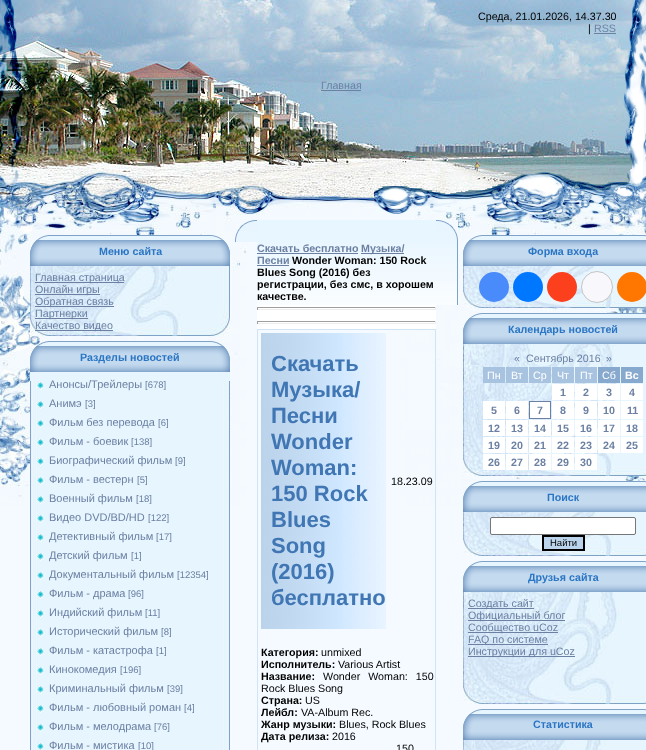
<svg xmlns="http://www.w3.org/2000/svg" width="646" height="750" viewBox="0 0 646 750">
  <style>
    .t1 { font: 10.7px Liberation Sans; fill: #000; }
    .t2 { font: 10.7px Liberation Sans; fill: #6b80a3; }
    .t3 { font: bold 10.7px Liberation Sans; fill: #2a75c4; }
    .t4 { font: 11px Liberation Sans; fill: #6b80a3; }
    .t5 { font: 9.5px Liberation Sans; fill: #6b80a3; }
    .t6 { font: bold 10.7px Liberation Sans; fill: #6b80a3; }
    .t7 { font: bold 10.7px Liberation Sans; fill: #000; }
    .t8 { font: bold 22px Liberation Sans; fill: #3f76b3; }
    .t9 { font: 10.7px Liberation Sans; fill: #fff; }
    .t10 { font: bold 10.7px Liberation Sans; fill: #fff; }
    .t11 { font: 9.5px Liberation Sans; fill: #000; }
  </style>
  <rect width="100%" height="100%" fill="#f4faff"/>
  <image x="308" y="0" width="327" height="215" href="images/1.png"/>
  <image x="0" y="0" width="308" height="215" href="images/2.png"/>
  <image x="374" y="0" width="272" height="215" href="images/3.png"/>
  <text x="478" y="20" class="t1">Среда, 21.01.2026, 14.37.30</text>
  <text x="588" y="32" class="t1">|</text>
  <text x="594" y="32" class="t2">RSS</text>
  <rect x="594" y="33" width="22" height="1" fill="#6b80a3"/>
  <text x="321" y="89" class="t2">Главная</text>
  <rect x="321" y="90" width="40" height="1" fill="#6b80a3"/>
  <image x="400" y="215" width="246" height="294" href="images/4.png"/>
  <image x="0" y="215" width="247" height="294" href="images/5.png"/>
  <image x="30" y="235" width="200" height="31" href="images/6.png"/>
  <text x="99" y="255" class="t3">Меню сайта</text>
  <image x="30" y="266" width="200" height="70" href="images/7.png"/>
  <rect x="35" y="282" width="89" height="1" fill="#6b80a3"/>
  <text x="35" y="281" class="t2">Главная страница</text>
  <rect x="35" y="294" width="65" height="1" fill="#6b80a3"/>
  <text x="35" y="293" class="t2">Онлайн игры</text>
  <rect x="35" y="306" width="79" height="1" fill="#6b80a3"/>
  <text x="35" y="305" class="t2">Обратная связь</text>
  <rect x="35" y="318" width="53" height="1" fill="#6b80a3"/>
  <text x="35" y="317" class="t2">Партнерки</text>
  <rect x="35" y="330" width="78" height="1" fill="#6b80a3"/>
  <text x="35" y="329" class="t2">Качество видео</text>
  <image x="30" y="341" width="200" height="31" href="images/8.png"/>
  <text x="80" y="361" class="t3">Разделы новостей</text>
  <rect x="30" y="372" width="200" height="9" fill="#e7f5ff"/>
  <image x="30" y="381" width="200" height="369" href="images/9.png"/>
  <image x="36" y="382" width="9" height="8" href="images/10.png"/>
  <text x="49" y="388" class="t4">Анонсы/Трейлеры</text>
  <text x="145" y="388" class="t5">[678]</text>
  <image x="36" y="401" width="9" height="8" href="images/10.png"/>
  <text x="49" y="407" class="t4">Анимэ</text>
  <text x="85" y="407" class="t5">[3]</text>
  <image x="36" y="420" width="9" height="8" href="images/10.png"/>
  <text x="49" y="426" class="t4">Фильм без перевода</text>
  <text x="158" y="426" class="t5">[6]</text>
  <image x="36" y="439" width="9" height="8" href="images/10.png"/>
  <text x="49" y="445" class="t4">Фильм - боевик</text>
  <text x="131" y="445" class="t5">[138]</text>
  <image x="36" y="458" width="9" height="8" href="images/10.png"/>
  <text x="49" y="464" class="t4">Биографический фильм</text>
  <text x="175" y="464" class="t5">[9]</text>
  <image x="36" y="477" width="9" height="8" href="images/10.png"/>
  <text x="49" y="483" class="t4">Фильм - вестерн</text>
  <text x="137" y="483" class="t5">[5]</text>
  <image x="36" y="496" width="9" height="8" href="images/10.png"/>
  <text x="49" y="502" class="t4">Военный фильм</text>
  <text x="136" y="502" class="t5">[18]</text>
  <image x="36" y="515" width="9" height="8" href="images/10.png"/>
  <text x="49" y="521" class="t4">Видео DVD/BD/HD</text>
  <text x="148" y="521" class="t5">[122]</text>
  <image x="36" y="534" width="9" height="8" href="images/10.png"/>
  <text x="49" y="540" class="t4">Детективный фильм</text>
  <text x="156" y="540" class="t5">[17]</text>
  <image x="36" y="553" width="9" height="8" href="images/10.png"/>
  <text x="49" y="559" class="t4">Детский фильм</text>
  <text x="131" y="559" class="t5">[1]</text>
  <image x="36" y="572" width="9" height="8" href="images/10.png"/>
  <text x="49" y="578" class="t4">Документальный фильм</text>
  <text x="177" y="578" class="t5">[12354]</text>
  <image x="36" y="591" width="9" height="8" href="images/10.png"/>
  <text x="49" y="597" class="t4">Фильм - драма</text>
  <text x="128" y="597" class="t5">[96]</text>
  <image x="36" y="610" width="9" height="8" href="images/10.png"/>
  <text x="49" y="616" class="t4">Индийский фильм</text>
  <text x="145" y="616" class="t5">[11]</text>
  <image x="36" y="629" width="9" height="8" href="images/10.png"/>
  <text x="49" y="635" class="t4">Исторический фильм</text>
  <text x="161" y="635" class="t5">[8]</text>
  <image x="36" y="648" width="9" height="8" href="images/10.png"/>
  <text x="49" y="654" class="t4">Фильм - катастрофа</text>
  <text x="156" y="654" class="t5">[1]</text>
  <image x="36" y="667" width="9" height="8" href="images/10.png"/>
  <text x="49" y="673" class="t4">Кинокомедия</text>
  <text x="120" y="673" class="t5">[196]</text>
  <image x="36" y="686" width="9" height="8" href="images/10.png"/>
  <text x="49" y="692" class="t4">Криминальный фильм</text>
  <text x="167" y="692" class="t5">[39]</text>
  <image x="36" y="705" width="9" height="8" href="images/10.png"/>
  <text x="49" y="711" class="t4">Фильм - любовный роман</text>
  <text x="184" y="711" class="t5">[4]</text>
  <image x="36" y="724" width="9" height="8" href="images/10.png"/>
  <text x="49" y="730" class="t4">Фильм - мелодрама</text>
  <text x="154" y="730" class="t5">[76]</text>
  <image x="36" y="743" width="9" height="7" href="images/11.png"/>
  <text x="49" y="749" class="t4">Фильм - мистика</text>
  <text x="138" y="749" class="t5">[10]</text>
  <image x="235" y="220" width="22" height="22" href="images/12.png"/>
  <rect x="257" y="220" width="179" height="22" fill="#e8f6ff"/>
  <image x="436" y="220" width="22" height="22" href="images/13.png"/>
  <rect x="257" y="305" width="179" height="24" fill="#fff"/>
  <image x="257" y="242" width="179" height="63" href="images/14.png"/>
  <text x="257" y="252" class="t6">Скачать бесплатно</text>
  <rect x="257" y="253" width="101" height="1" fill="#6b80a3"/>
  <rect x="361" y="253" width="43" height="1" fill="#6b80a3"/>
  <text x="361" y="252" class="t6">Музыка/</text>
  <text x="257" y="264" class="t6">Песни</text>
  <rect x="257" y="265" width="32" height="1" fill="#6b80a3"/>
  <text x="292" y="264" class="t7">Wonder Woman: 150 Rock</text>
  <text x="257" y="276" class="t7">Blues Song (2016) без</text>
  <text x="257" y="288" class="t7">регистрации, без смс, в хорошем</text>
  <text x="257" y="300" class="t7">качестве.</text>
  <rect x="257" y="307" width="179" height="1" fill="#9f9f9f"/>
  <rect x="435" y="307" width="1" height="3" fill="#eee"/>
  <rect x="257" y="309" width="179" height="1" fill="#eee"/>
  <rect x="257" y="307" width="1" height="3" fill="#9f9f9f"/>
  <rect x="257" y="321" width="179" height="1" fill="#9f9f9f"/>
  <rect x="435" y="321" width="1" height="3" fill="#eee"/>
  <rect x="257" y="323" width="179" height="1" fill="#eee"/>
  <rect x="257" y="321" width="1" height="3" fill="#9f9f9f"/>
  <rect x="408" y="352" width="26" height="79" fill="#f4faff"/>
  <rect x="257.5" y="329.5" width="178" height="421" fill="none" stroke="#d1e4f5"/>
  <image x="261" y="333" width="125" height="296" href="images/15.png"/>
  <text x="271" y="371" class="t8">Скачать</text>
  <text x="271" y="397" class="t8">Музыка/</text>
  <text x="271" y="423" class="t8">Песни</text>
  <text x="271" y="449" class="t8">Wonder</text>
  <text x="271" y="475" class="t8">Woman:</text>
  <text x="271" y="501" class="t8">150 Rock</text>
  <text x="271" y="527" class="t8">Blues</text>
  <text x="271" y="553" class="t8">Song</text>
  <text x="271" y="579" class="t8">(2016)</text>
  <text x="271" y="605" class="t8">бесплатно</text>
  <text x="391" y="485" class="t1">18.23.09</text>
  <text x="261" y="656" class="t7">Категория:</text>
  <text x="321" y="656" class="t1">unmixed</text>
  <text x="261" y="668" class="t7">Исполнитель:</text>
  <text x="338" y="668" class="t1">Various Artist</text>
  <text x="261" y="680" class="t7">Название:</text>
  <text x="323" y="680" word-spacing="5" class="t1">Wonder Woman: 150</text>
  <text x="261" y="692" class="t1">Rock Blues Song</text>
  <text x="261" y="704" class="t7">Страна:</text>
  <text x="305" y="704" class="t1">US</text>
  <text x="261" y="716" class="t7">Лейбл:</text>
  <text x="301" y="716" class="t1">VA-Album Rec.</text>
  <text x="261" y="728" class="t7">Жанр музыки:</text>
  <text x="339" y="728" class="t1">Blues, Rock Blues</text>
  <text x="261" y="740" class="t7">Дата релиза:</text>
  <text x="332" y="740" class="t1">2016</text>
  <text x="396" y="752" class="t1">150</text>
  <image x="436" y="242" width="22" height="63" href="images/16.png"/>
  <image x="463" y="235" width="183" height="31" href="images/17.png"/>
  <text x="528" y="255" class="t3">Форма входа</text>
  <image x="463" y="266" width="183" height="42" href="images/18.png"/>
  <circle cx="494" cy="287" r="15" fill="#498bfa"/>
  <circle cx="528" cy="287" r="15" fill="#07f"/>
  <circle cx="562" cy="287" r="15" fill="#fc3f1d"/>
  <circle cx="597" cy="287" r="15.5" fill="#f8f8fc" stroke="#c4c4c4"/>
  <circle cx="632" cy="287" r="15" fill="#f70"/>
  <image x="463" y="313" width="183" height="31" href="images/19.png"/>
  <text x="508" y="333" class="t3">Календарь новостей</text>
  <image x="463" y="344" width="183" height="132" href="images/20.png"/>
  <text x="514" y="362" class="t2">«</text>
  <text x="526" y="362" class="t2">Сентябрь 2016</text>
  <text x="606" y="362" class="t2">»</text>
  <rect x="483" y="367" width="22" height="16" fill="#a8c3e0"/>
  <text x="487" y="379" class="t9">Пн</text>
  <rect x="506" y="367" width="22" height="16" fill="#a8c3e0"/>
  <text x="511" y="379" class="t9">Вт</text>
  <rect x="529" y="367" width="22" height="16" fill="#a8c3e0"/>
  <text x="533" y="379" class="t9">Ср</text>
  <rect x="552" y="367" width="22" height="16" fill="#a8c3e0"/>
  <text x="557" y="379" class="t9">Чт</text>
  <rect x="575" y="367" width="22" height="16" fill="#a8c3e0"/>
  <text x="580" y="379" class="t9">Пт</text>
  <rect x="598" y="367" width="22" height="16" fill="#88a9ce"/>
  <text x="602" y="379" class="t9">Сб</text>
  <rect x="621" y="367" width="22" height="16" fill="#88a9ce"/>
  <text x="625" y="379" class="t10">Вс</text>
  <rect x="552" y="384" width="22" height="16" fill="#fff"/>
  <text x="560" y="396" class="t6">1</text>
  <rect x="575" y="384" width="22" height="16" fill="#fff"/>
  <text x="583" y="396" class="t6">2</text>
  <rect x="598" y="384" width="22" height="16" fill="#fff"/>
  <text x="606" y="396" class="t6">3</text>
  <rect x="621" y="384" width="22" height="16" fill="#fff"/>
  <text x="629" y="396" class="t6">4</text>
  <rect x="483" y="401" width="22" height="18" fill="#fff"/>
  <text x="491" y="414" class="t6">5</text>
  <rect x="506" y="401" width="22" height="18" fill="#fff"/>
  <text x="514" y="414" class="t6">6</text>
  <rect x="529.5" y="401.5" width="21" height="17" fill="#fff" stroke="#6b80a3"/>
  <text x="537" y="414" class="t6">7</text>
  <rect x="552" y="401" width="22" height="18" fill="#fff"/>
  <text x="560" y="414" class="t6">8</text>
  <rect x="575" y="401" width="22" height="18" fill="#fff"/>
  <text x="583" y="414" class="t6">9</text>
  <rect x="598" y="401" width="22" height="18" fill="#fff"/>
  <text x="603" y="414" class="t6">10</text>
  <rect x="621" y="401" width="22" height="18" fill="#fff"/>
  <text x="627" y="414" class="t6">11</text>
  <rect x="483" y="420" width="22" height="16" fill="#fff"/>
  <text x="488" y="432" class="t6">12</text>
  <rect x="506" y="420" width="22" height="16" fill="#fff"/>
  <text x="511" y="432" class="t6">13</text>
  <rect x="529" y="420" width="22" height="16" fill="#fff"/>
  <text x="534" y="432" class="t6">14</text>
  <rect x="552" y="420" width="22" height="16" fill="#fff"/>
  <text x="557" y="432" class="t6">15</text>
  <rect x="575" y="420" width="22" height="16" fill="#fff"/>
  <text x="580" y="432" class="t6">16</text>
  <rect x="598" y="420" width="22" height="16" fill="#fff"/>
  <text x="603" y="432" class="t6">17</text>
  <rect x="621" y="420" width="22" height="16" fill="#fff"/>
  <text x="626" y="432" class="t6">18</text>
  <rect x="483" y="437" width="22" height="16" fill="#fff"/>
  <text x="488" y="449" class="t6">19</text>
  <rect x="506" y="437" width="22" height="16" fill="#fff"/>
  <text x="511" y="449" class="t6">20</text>
  <rect x="529" y="437" width="22" height="16" fill="#fff"/>
  <text x="534" y="449" class="t6">21</text>
  <rect x="552" y="437" width="22" height="16" fill="#fff"/>
  <text x="557" y="449" class="t6">22</text>
  <rect x="575" y="437" width="22" height="16" fill="#fff"/>
  <text x="580" y="449" class="t6">23</text>
  <rect x="598" y="437" width="22" height="16" fill="#fff"/>
  <text x="603" y="449" class="t6">24</text>
  <rect x="621" y="437" width="22" height="16" fill="#fff"/>
  <text x="626" y="449" class="t6">25</text>
  <rect x="483" y="454" width="22" height="16" fill="#fff"/>
  <text x="488" y="466" class="t6">26</text>
  <rect x="506" y="454" width="22" height="16" fill="#fff"/>
  <text x="511" y="466" class="t6">27</text>
  <rect x="529" y="454" width="22" height="16" fill="#fff"/>
  <text x="534" y="466" class="t6">28</text>
  <rect x="552" y="454" width="22" height="16" fill="#fff"/>
  <text x="557" y="466" class="t6">29</text>
  <rect x="575" y="454" width="22" height="16" fill="#fff"/>
  <text x="580" y="466" class="t6">30</text>
  <image x="463" y="481" width="183" height="31" href="images/21.png"/>
  <text x="547" y="501" class="t3">Поиск</text>
  <image x="463" y="512" width="183" height="44" href="images/22.png"/>
  <rect x="490.5" y="517.5" width="145" height="17" rx="1.5" fill="#fff" stroke="#767676"/>
  <rect x="543" y="536" width="41" height="14" fill="#bcd4eb" stroke="#000" stroke-width="2"/>
  <text x="550" y="546" class="t11">Найти</text>
  <image x="463" y="561" width="183" height="31" href="images/23.png"/>
  <text x="528" y="581" class="t3">Друзья сайта</text>
  <image x="463" y="592" width="183" height="112" href="images/24.png"/>
  <rect x="468" y="608" width="66" height="1" fill="#6b80a3"/>
  <text x="468" y="607" class="t2">Создать сайт</text>
  <rect x="468" y="620" width="97" height="1" fill="#6b80a3"/>
  <text x="468" y="619" class="t2">Официальный блог</text>
  <rect x="468" y="632" width="90" height="1" fill="#6b80a3"/>
  <text x="468" y="631" class="t2">Сообщество uCoz</text>
  <rect x="468" y="644" width="80" height="1" fill="#6b80a3"/>
  <text x="468" y="643" class="t2">FAQ по системе</text>
  <rect x="468" y="656" width="107" height="1" fill="#6b80a3"/>
  <text x="468" y="655" class="t2">Инструкции для uCoz</text>
  <image x="463" y="709" width="183" height="31" href="images/23.png"/>
  <text x="533" y="728" class="t3">Статистика</text>
  <rect x="606" y="740" width="40" height="10" fill="#e7f5ff"/>
  <image x="463" y="740" width="143" height="10" href="images/25.png"/>
</svg>
